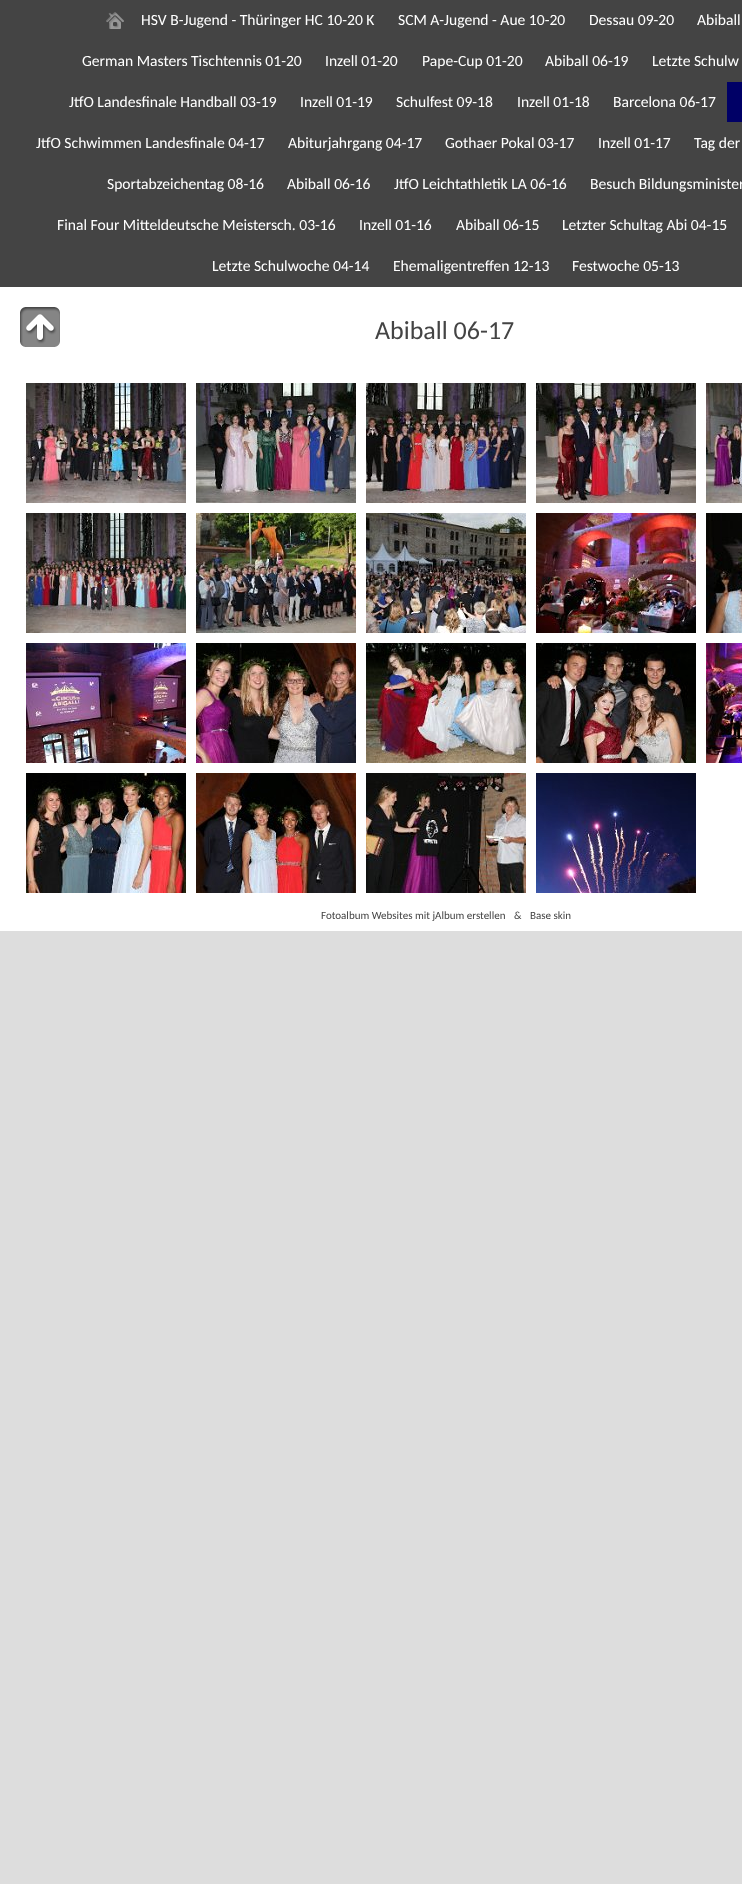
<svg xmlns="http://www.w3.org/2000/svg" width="742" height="1884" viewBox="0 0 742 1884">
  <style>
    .t1 { font: 15.6px Carlito; fill: #fff; }
    .t2 { font: 26px Carlito; fill: #444; }
    .t3 { font: 11px Carlito; fill: #444; }
  </style>
  <rect width="100%" height="100%" fill="#ddd"/>
  <rect x="0" y="287" width="742" height="644" fill="#fff"/>
  <rect x="0" y="0" width="742" height="287" fill="#444"/>
  <image x="106" y="12" width="18" height="17" href="images/1.png"/>
  <text x="141" y="25" class="t1">HSV B-Jugend - Thüringer HC 10-20 K</text>
  <text x="398" y="25" class="t1">SCM A-Jugend - Aue 10-20</text>
  <text x="589" y="25" class="t1">Dessau 09-20</text>
  <text x="697" y="25" class="t1">Abiball</text>
  <text x="82" y="66" class="t1">German Masters Tischtennis 01-20</text>
  <text x="325" y="66" class="t1">Inzell 01-20</text>
  <text x="422" y="66" class="t1">Pape-Cup 01-20</text>
  <text x="545" y="66" class="t1">Abiball 06-19</text>
  <text x="652" y="66" class="t1">Letzte Schulw</text>
  <text x="69" y="107" class="t1">JtfO Landesfinale Handball 03-19</text>
  <text x="300" y="107" class="t1">Inzell 01-19</text>
  <text x="396" y="107" class="t1">Schulfest 09-18</text>
  <text x="517" y="107" class="t1">Inzell 01-18</text>
  <text x="613" y="107" class="t1">Barcelona 06-17</text>
  <rect x="727" y="82" width="15" height="40" fill="#006"/>
  <text x="36" y="148" class="t1">JtfO Schwimmen Landesfinale 04-17</text>
  <text x="288" y="148" class="t1">Abiturjahrgang 04-17</text>
  <text x="445" y="148" class="t1">Gothaer Pokal 03-17</text>
  <text x="598" y="148" class="t1">Inzell 01-17</text>
  <text x="694" y="148" class="t1">Tag der</text>
  <text x="107" y="189" class="t1">Sportabzeichentag 08-16</text>
  <text x="287" y="189" class="t1">Abiball 06-16</text>
  <text x="394" y="189" class="t1">JtfO Leichtathletik LA 06-16</text>
  <text x="590" y="189" class="t1">Besuch Bildungsminister</text>
  <text x="57" y="230" class="t1">Final Four Mitteldeutsche Meistersch. 03-16</text>
  <text x="359" y="230" class="t1">Inzell 01-16</text>
  <text x="456" y="230" class="t1">Abiball 06-15</text>
  <text x="562" y="230" class="t1">Letzter Schultag Abi 04-15</text>
  <text x="212" y="271" class="t1">Letzte Schulwoche 04-14</text>
  <text x="393" y="271" class="t1">Ehemaligentreffen 12-13</text>
  <text x="572" y="271" class="t1">Festwoche 05-13</text>
  <image x="20" y="307" width="40" height="40" href="images/2.png"/>
  <text x="375" y="339" class="t2">Abiball 06-17</text>
  <image x="26" y="383" width="160" height="120" href="images/3.png"/>
  <image x="196" y="383" width="160" height="120" href="images/4.png"/>
  <image x="366" y="383" width="160" height="120" href="images/5.png"/>
  <image x="536" y="383" width="160" height="120" href="images/6.png"/>
  <image x="706" y="383" width="36" height="120" href="images/7.png"/>
  <image x="26" y="513" width="160" height="120" href="images/8.png"/>
  <image x="196" y="513" width="160" height="120" href="images/9.png"/>
  <image x="366" y="513" width="160" height="120" href="images/10.png"/>
  <image x="536" y="513" width="160" height="120" href="images/11.png"/>
  <image x="706" y="513" width="36" height="120" href="images/12.png"/>
  <image x="26" y="643" width="160" height="120" href="images/13.png"/>
  <image x="196" y="643" width="160" height="120" href="images/14.png"/>
  <image x="366" y="643" width="160" height="120" href="images/15.png"/>
  <image x="536" y="643" width="160" height="120" href="images/16.png"/>
  <image x="706" y="643" width="36" height="120" href="images/17.png"/>
  <image x="26" y="773" width="160" height="120" href="images/18.png"/>
  <image x="196" y="773" width="160" height="120" href="images/19.png"/>
  <image x="366" y="773" width="160" height="120" href="images/20.png"/>
  <image x="536" y="773" width="160" height="120" href="images/21.png"/>
  <text x="321" y="919" class="t3">Fotoalbum Websites mit jAlbum erstellen</text>
  <text x="514" y="919" class="t3">&amp;</text>
  <text x="530" y="919" class="t3">Base skin</text>
</svg>
